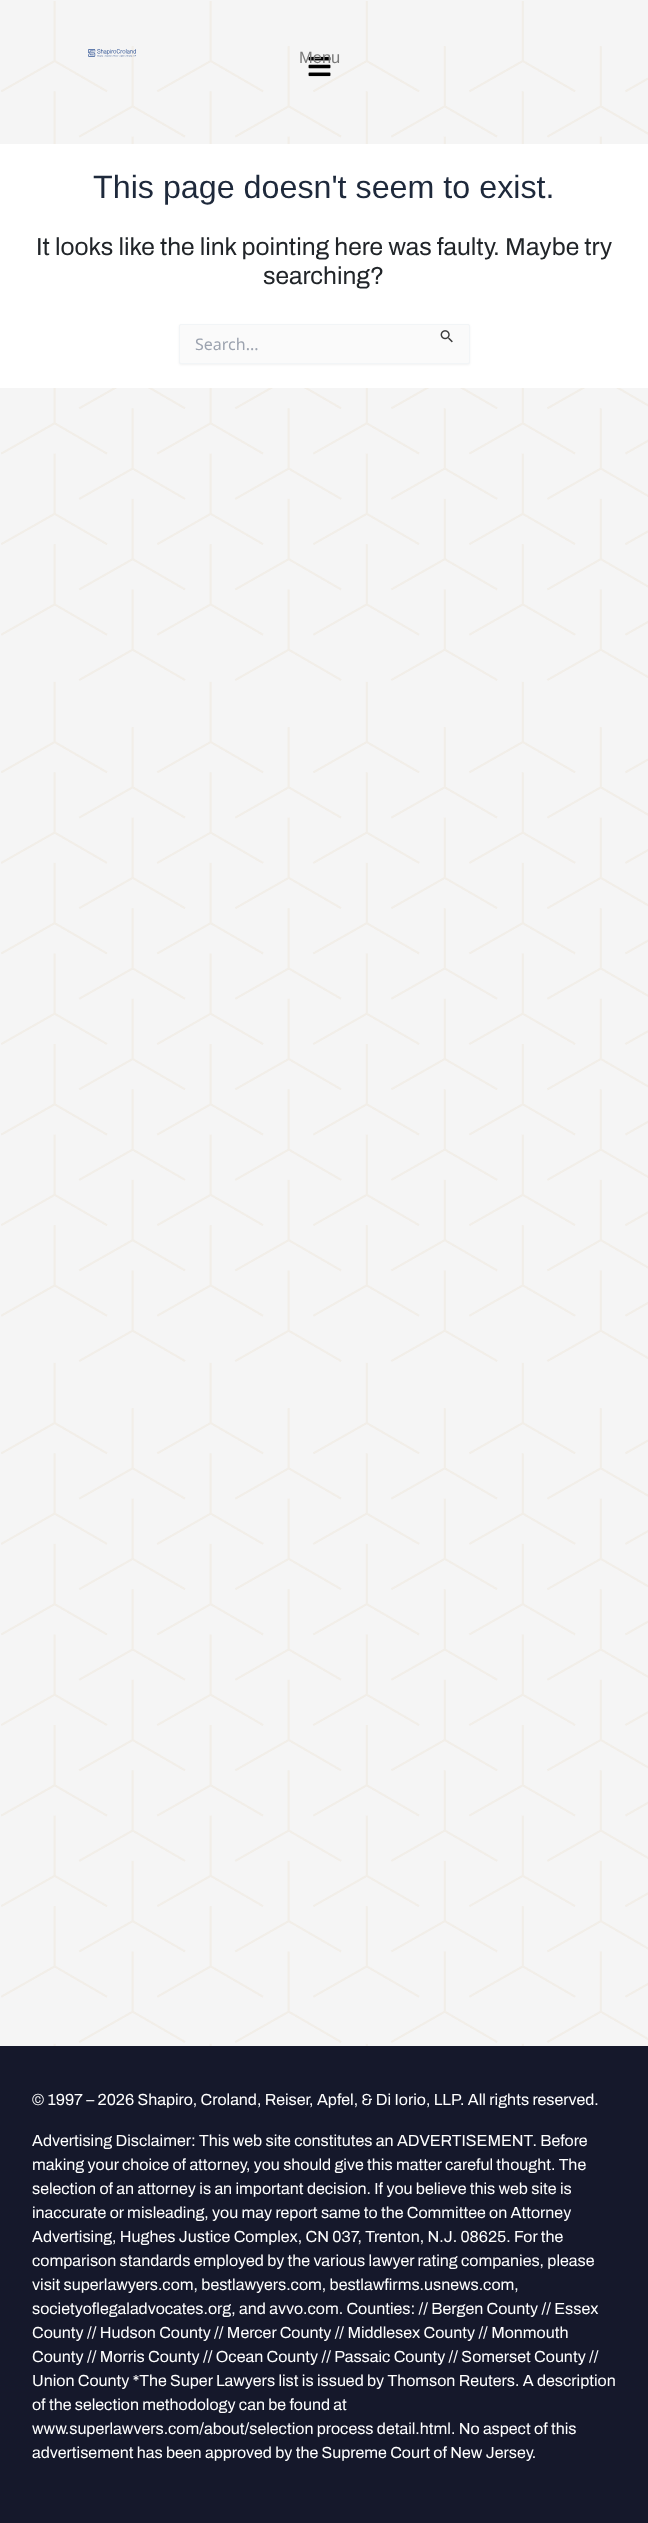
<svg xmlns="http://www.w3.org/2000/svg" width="648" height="2523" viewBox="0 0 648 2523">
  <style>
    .t1 { font: 16.5px Liberation Sans; fill: #7a7a7a; }
    .t2 { font: 32.25px Liberation Sans; fill: #1e293b; }
    .t3 { font: 24.6px Archivo; fill: #212529; }
    .t4 { font: 16px Noto Sans; fill: #9ca3af; }
    .t5 { font: 16px Archivo; fill: #fff; }
  </style>
  <rect width="100%" height="100%" fill="#f5f5f5"/>
  <image x="1" y="1" width="647" height="2045" href="images/1.png"/>
  <image x="88" y="49" width="48" height="8" href="images/2.png"/>
  <image x="308" y="56" width="23" height="21" href="images/3.png"/>
  <text x="299" y="63" class="t1">Menu</text>
  <rect x="0" y="144" width="648" height="244" fill="#fff"/>
  <text x="93" y="198" class="t2">This page doesn't seem to exist.</text>
  <text x="36" y="255" class="t3">It looks like the link pointing here was faulty. Maybe try</text>
  <text x="263" y="284" class="t3">searching?</text>
  <rect x="179" y="325" width="291" height="40" rx="2" fill="#0000000d" filter="blur(1px)"/>
  <rect x="179.5" y="324.5" width="290" height="39" rx="1.5" fill="#fafafa" stroke="#f2f5f7"/>
  <text x="195" y="350" class="t4">Search...</text>
  <image x="440" y="330" width="13" height="13" href="images/4.png"/>
  <rect x="0" y="2046" width="648" height="477" fill="#15182b"/>
  <text x="32" y="2105" class="t5">© 1997 – 2026 Shapiro, Croland, Reiser, Apfel, &amp; Di Iorio, LLP. All rights reserved.</text>
  <text x="32" y="2146" class="t5">Advertising Disclaimer: This web site constitutes an ADVERTISEMENT. Before</text>
  <text x="32" y="2170" class="t5">making your choice of attorney, you should give this matter careful thought. The</text>
  <text x="32" y="2194" class="t5">selection of an attorney is an important decision. If you believe this web site is</text>
  <text x="32" y="2218" class="t5">inaccurate or misleading, you may report same to the Committee on Attorney</text>
  <text x="32" y="2242" class="t5">Advertising, Hughes Justice Complex, CN 037, Trenton, N.J. 08625. For the</text>
  <text x="32" y="2266" class="t5">comparison standards employed by the various lawyer rating companies, please</text>
  <text x="32" y="2290" class="t5">visit superlawyers.com, bestlawyers.com, bestlawfirms.usnews.com,</text>
  <text x="32" y="2314" class="t5">societyoflegaladvocates.org, and avvo.com. Counties: // Bergen County // Essex</text>
  <text x="32" y="2338" class="t5">County // Hudson County // Mercer County // Middlesex County // Monmouth</text>
  <text x="32" y="2362" class="t5">County // Morris County // Ocean County // Passaic County // Somerset County //</text>
  <text x="32" y="2386" class="t5">Union County *The Super Lawyers list is issued by Thomson Reuters. A description</text>
  <text x="32" y="2410" class="t5">of the selection methodology can be found at</text>
  <text x="32" y="2434" class="t5">www.superlawvers.com/about/selection process detail.html. No aspect of this</text>
  <text x="32" y="2458" class="t5">advertisement has been approved by the Supreme Court of New Jersey.</text>
</svg>
